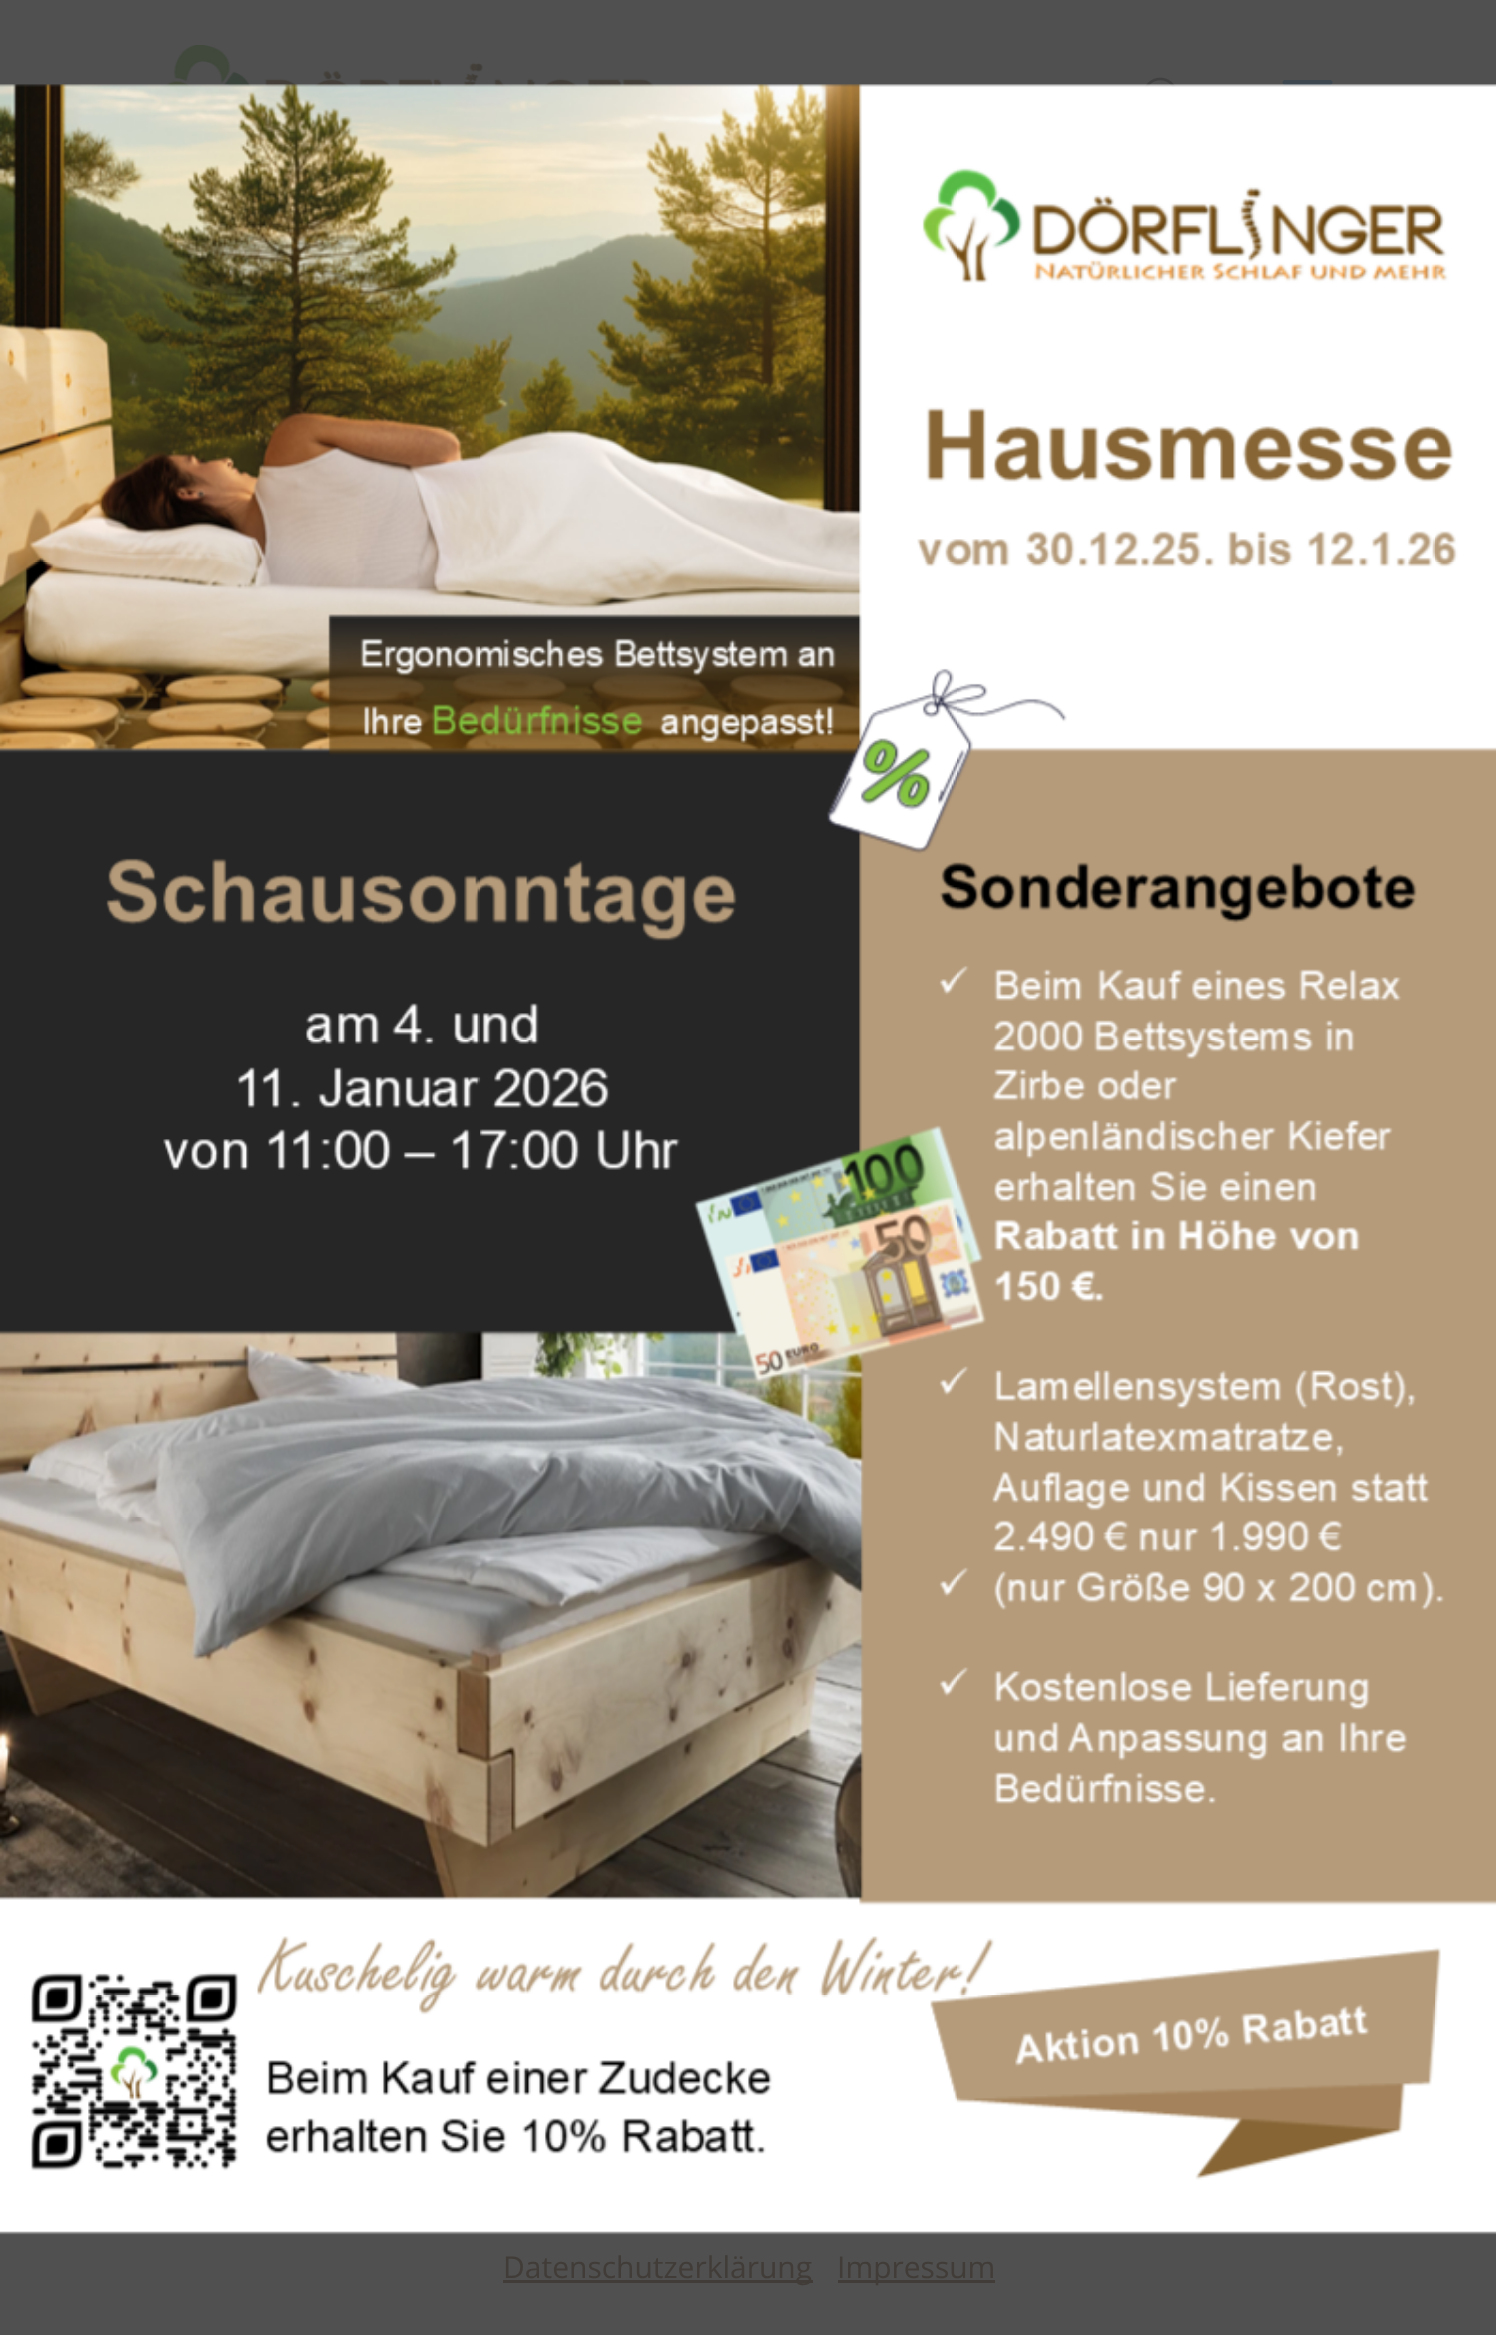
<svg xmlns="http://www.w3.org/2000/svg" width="1496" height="2335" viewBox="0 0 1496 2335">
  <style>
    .t1 { font: 30px Open Sans; fill: #413c37; }
  </style>
  <rect width="100%" height="100%" fill="#505050"/>
  <image x="164" y="45" width="491" height="42" href="images/1.png"/>
  <image x="1145" y="77" width="31" height="10" href="images/2.png"/>
  <image x="1282" y="80" width="51" height="5" href="images/3.png"/>
  <image x="0" y="84" width="1496" height="2151" href="images/4.png"/>
  <rect x="503" y="2280" width="310" height="3" fill="#413c37"/>
  <text x="503" y="2278" class="t1">Datenschutzerklärung</text>
  <rect x="838" y="2280" width="157" height="3" fill="#413c37"/>
  <text x="837" y="2278" class="t1">Impressum</text>
</svg>
